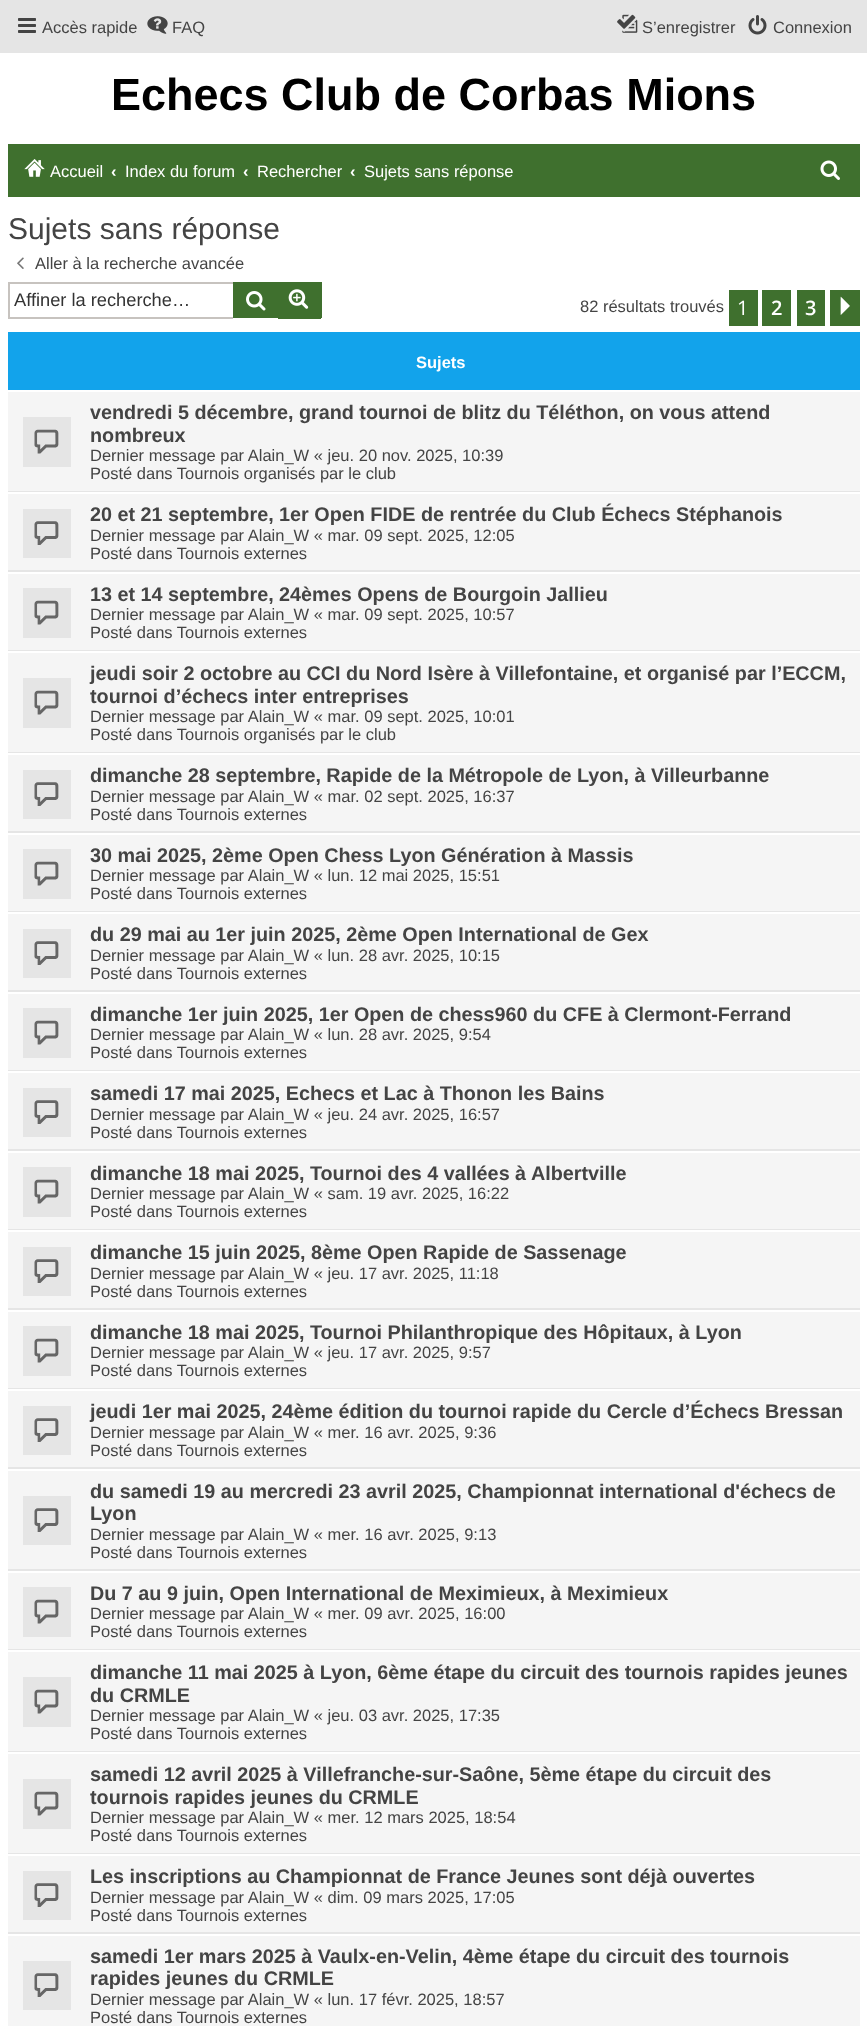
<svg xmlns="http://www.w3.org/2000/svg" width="867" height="2026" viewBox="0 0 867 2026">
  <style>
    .t1 { font: 16.5px Liberation Sans; fill: #444; }
    .t2 { font: bold 45px Liberation Sans; fill: #000; }
    .t3 { font: 16.5px Liberation Sans; fill: #fff; }
    .t4 { font: bold 16.5px Liberation Sans; fill: #fff; }
    .t5 { font: 30px Liberation Sans; fill: #444; }
    .t6 { font: 18.25px Liberation Sans; fill: #333; }
    .t7 { font: 20px Open Sans; fill: #fff; }
    .t8 { font: 600 20px Open Sans; fill: #fff; }
    .t9 { font: bold 19.8px Liberation Sans; fill: #444; }
  </style>
  <rect width="100%" height="100%" fill="#e5e5e5"/>
  <image x="18" y="18" width="18" height="15" href="images/1.png"/>
  <text x="42" y="33" class="t1">Accès rapide</text>
  <image x="147" y="16" width="21" height="18" href="images/2.png"/>
  <text x="172" y="33" class="t1">FAQ</text>
  <image x="617" y="14" width="21" height="19" href="images/3.png"/>
  <text x="642" y="33" class="t1">S’enregistrer</text>
  <image x="748" y="15" width="19" height="20" href="images/4.png"/>
  <text x="773" y="33" class="t1">Connexion</text>
  <rect x="0" y="53" width="867" height="1973" fill="#fff"/>
  <text x="111" y="110" class="t2">Echecs Club de Corbas Mions</text>
  <rect x="8" y="144" width="852" height="53" fill="#3f702e"/>
  <image x="24" y="159" width="21" height="18" href="images/5.png"/>
  <text x="50" y="177" class="t3">Accueil</text>
  <text x="111" y="177" class="t4">‹</text>
  <text x="125" y="177" class="t3">Index du forum</text>
  <text x="243" y="177" class="t4">‹</text>
  <text x="257" y="177" class="t3">Rechercher</text>
  <text x="350" y="177" class="t4">‹</text>
  <text x="364" y="177" class="t3">Sujets sans réponse</text>
  <image x="820" y="160" width="20" height="20" href="images/6.png"/>
  <text x="8" y="239" class="t5">Sujets sans réponse</text>
  <image x="17" y="257" width="7" height="12" href="images/7.png"/>
  <text x="35" y="269" class="t1">Aller à la recherche avancée</text>
  <rect x="8" y="282" width="225" height="2" fill="#c7c3bf"/>
  <rect x="8" y="317" width="225" height="2" fill="#c7c3bf"/>
  <rect x="8" y="282" width="2" height="36" fill="#c7c3bf"/>
  <text x="14" y="306" class="t6">Affiner la recherche…</text>
  <rect x="233" y="282" width="45" height="36" fill="#3f702e"/>
  <image x="246" y="291" width="20" height="20" href="images/8.png"/>
  <rect x="278" y="284" width="42" height="33" fill="#3f702e"/>
  <rect x="278" y="282" width="43" height="2" fill="#3f702e"/>
  <rect x="320" y="282" width="2" height="36" fill="#3f702e"/>
  <rect x="278" y="317" width="43" height="2" fill="#3f702e"/>
  <image x="288" y="289" width="21" height="20" href="images/9.png"/>
  <text x="580" y="312" class="t1">82 résultats trouvés</text>
  <rect x="729" y="290" width="29" height="36" fill="#3f702e"/>
  <text x="737" y="315" class="t7">1</text>
  <rect x="762" y="290" width="29" height="36" fill="#3f702e"/>
  <text x="771" y="315" class="t8">2</text>
  <rect x="797" y="290" width="28" height="36" fill="#3f702e"/>
  <text x="805" y="315" class="t8">3</text>
  <rect x="830" y="290" width="30" height="36" fill="#3f702e"/>
  <image x="840" y="296" width="10" height="19" href="images/10.png"/>
  <rect x="8" y="332" width="852" height="58" fill="#12a3eb"/>
  <text x="416" y="368" class="t4">Sujets</text>
  <rect x="8" y="392" width="852" height="99" fill="#f5f5f5"/>
  <rect x="8" y="491" width="852" height="1" fill="#e5e5e5"/>
  <rect x="23" y="417" width="48" height="50" fill="#e5e5e5"/>
  <image x="34" y="429" width="25" height="25" href="images/11.png"/>
  <text x="90" y="419" class="t9">vendredi 5 décembre, grand tournoi de blitz du Téléthon, on vous attend</text>
  <text x="90" y="442" class="t9">nombreux</text>
  <text x="90" y="461" class="t1">Dernier message par Alain_W « jeu. 20 nov. 2025, 10:39</text>
  <text x="90" y="479" class="t1">Posté dans Tournois organisés par le club</text>
  <rect x="8" y="494" width="852" height="76" fill="#f5f5f5"/>
  <rect x="8" y="570" width="852" height="2" fill="#e5e5e5"/>
  <rect x="23" y="509" width="48" height="49" fill="#e5e5e5"/>
  <image x="34" y="521" width="25" height="24" href="images/12.png"/>
  <text x="90" y="521" class="t9">20 et 21 septembre, 1er Open FIDE de rentrée du Club Échecs Stéphanois</text>
  <text x="90" y="541" class="t1">Dernier message par Alain_W « mar. 09 sept. 2025, 12:05</text>
  <text x="90" y="559" class="t1">Posté dans Tournois externes</text>
  <rect x="8" y="574" width="852" height="76" fill="#f5f5f5"/>
  <rect x="8" y="650" width="852" height="1" fill="#e5e5e5"/>
  <rect x="23" y="588" width="48" height="50" fill="#e5e5e5"/>
  <image x="34" y="600" width="25" height="25" href="images/11.png"/>
  <text x="90" y="601" class="t9">13 et 14 septembre, 24èmes Opens de Bourgoin Jallieu</text>
  <text x="90" y="620" class="t1">Dernier message par Alain_W « mar. 09 sept. 2025, 10:57</text>
  <text x="90" y="638" class="t1">Posté dans Tournois externes</text>
  <rect x="8" y="653" width="852" height="99" fill="#f5f5f5"/>
  <rect x="8" y="752" width="852" height="1" fill="#e5e5e5"/>
  <rect x="23" y="678" width="48" height="50" fill="#e5e5e5"/>
  <image x="34" y="690" width="25" height="25" href="images/11.png"/>
  <text x="90" y="680" class="t9">jeudi soir 2 octobre au CCI du Nord Isère à Villefontaine, et organisé par l’ECCM,</text>
  <text x="90" y="703" class="t9">tournoi d’échecs inter entreprises</text>
  <text x="90" y="722" class="t1">Dernier message par Alain_W « mar. 09 sept. 2025, 10:01</text>
  <text x="90" y="740" class="t1">Posté dans Tournois organisés par le club</text>
  <rect x="8" y="755" width="852" height="76" fill="#f5f5f5"/>
  <rect x="8" y="831" width="852" height="2" fill="#e5e5e5"/>
  <rect x="23" y="770" width="48" height="49" fill="#e5e5e5"/>
  <image x="34" y="782" width="25" height="24" href="images/12.png"/>
  <text x="90" y="782" class="t9">dimanche 28 septembre, Rapide de la Métropole de Lyon, à Villeurbanne</text>
  <text x="90" y="802" class="t1">Dernier message par Alain_W « mar. 02 sept. 2025, 16:37</text>
  <text x="90" y="820" class="t1">Posté dans Tournois externes</text>
  <rect x="8" y="835" width="852" height="76" fill="#f5f5f5"/>
  <rect x="8" y="911" width="852" height="1" fill="#e5e5e5"/>
  <rect x="23" y="849" width="48" height="50" fill="#e5e5e5"/>
  <image x="34" y="861" width="25" height="25" href="images/11.png"/>
  <text x="90" y="862" class="t9">30 mai 2025, 2ème Open Chess Lyon Génération à Massis</text>
  <text x="90" y="881" class="t1">Dernier message par Alain_W « lun. 12 mai 2025, 15:51</text>
  <text x="90" y="899" class="t1">Posté dans Tournois externes</text>
  <rect x="8" y="914" width="852" height="76" fill="#f5f5f5"/>
  <rect x="8" y="990" width="852" height="2" fill="#e5e5e5"/>
  <rect x="23" y="929" width="48" height="49" fill="#e5e5e5"/>
  <image x="34" y="941" width="25" height="24" href="images/12.png"/>
  <text x="90" y="941" class="t9">du 29 mai au 1er juin 2025, 2ème Open International de Gex</text>
  <text x="90" y="961" class="t1">Dernier message par Alain_W « lun. 28 avr. 2025, 10:15</text>
  <text x="90" y="979" class="t1">Posté dans Tournois externes</text>
  <rect x="8" y="994" width="852" height="76" fill="#f5f5f5"/>
  <rect x="8" y="1070" width="852" height="1" fill="#e5e5e5"/>
  <rect x="23" y="1008" width="48" height="50" fill="#e5e5e5"/>
  <image x="34" y="1020" width="25" height="25" href="images/11.png"/>
  <text x="90" y="1021" class="t9">dimanche 1er juin 2025, 1er Open de chess960 du CFE à Clermont-Ferrand</text>
  <text x="90" y="1040" class="t1">Dernier message par Alain_W « lun. 28 avr. 2025, 9:54</text>
  <text x="90" y="1058" class="t1">Posté dans Tournois externes</text>
  <rect x="8" y="1073" width="852" height="76" fill="#f5f5f5"/>
  <rect x="8" y="1149" width="852" height="2" fill="#e5e5e5"/>
  <rect x="23" y="1088" width="48" height="49" fill="#e5e5e5"/>
  <image x="34" y="1100" width="25" height="24" href="images/12.png"/>
  <text x="90" y="1100" class="t9">samedi 17 mai 2025, Echecs et Lac à Thonon les Bains</text>
  <text x="90" y="1120" class="t1">Dernier message par Alain_W « jeu. 24 avr. 2025, 16:57</text>
  <text x="90" y="1138" class="t1">Posté dans Tournois externes</text>
  <rect x="8" y="1153" width="852" height="76" fill="#f5f5f5"/>
  <rect x="8" y="1229" width="852" height="1" fill="#e5e5e5"/>
  <rect x="23" y="1167" width="48" height="50" fill="#e5e5e5"/>
  <image x="34" y="1179" width="25" height="25" href="images/11.png"/>
  <text x="90" y="1180" class="t9">dimanche 18 mai 2025, Tournoi des 4 vallées à Albertville</text>
  <text x="90" y="1199" class="t1">Dernier message par Alain_W « sam. 19 avr. 2025, 16:22</text>
  <text x="90" y="1217" class="t1">Posté dans Tournois externes</text>
  <rect x="8" y="1232" width="852" height="76" fill="#f5f5f5"/>
  <rect x="8" y="1308" width="852" height="2" fill="#e5e5e5"/>
  <rect x="23" y="1247" width="48" height="49" fill="#e5e5e5"/>
  <image x="34" y="1259" width="25" height="24" href="images/13.png"/>
  <text x="90" y="1259" class="t9">dimanche 15 juin 2025, 8ème Open Rapide de Sassenage</text>
  <text x="90" y="1279" class="t1">Dernier message par Alain_W « jeu. 17 avr. 2025, 11:18</text>
  <text x="90" y="1297" class="t1">Posté dans Tournois externes</text>
  <rect x="8" y="1312" width="852" height="76" fill="#f5f5f5"/>
  <rect x="8" y="1388" width="852" height="1" fill="#e5e5e5"/>
  <rect x="23" y="1326" width="48" height="50" fill="#e5e5e5"/>
  <image x="34" y="1338" width="25" height="25" href="images/11.png"/>
  <text x="90" y="1339" class="t9">dimanche 18 mai 2025, Tournoi Philanthropique des Hôpitaux, à Lyon</text>
  <text x="90" y="1358" class="t1">Dernier message par Alain_W « jeu. 17 avr. 2025, 9:57</text>
  <text x="90" y="1376" class="t1">Posté dans Tournois externes</text>
  <rect x="8" y="1391" width="852" height="76" fill="#f5f5f5"/>
  <rect x="8" y="1467" width="852" height="2" fill="#e5e5e5"/>
  <rect x="23" y="1406" width="48" height="49" fill="#e5e5e5"/>
  <image x="34" y="1418" width="25" height="24" href="images/12.png"/>
  <text x="90" y="1418" class="t9">jeudi 1er mai 2025, 24ème édition du tournoi rapide du Cercle d’Échecs Bressan</text>
  <text x="90" y="1438" class="t1">Dernier message par Alain_W « mer. 16 avr. 2025, 9:36</text>
  <text x="90" y="1456" class="t1">Posté dans Tournois externes</text>
  <rect x="8" y="1471" width="852" height="98" fill="#f5f5f5"/>
  <rect x="8" y="1569" width="852" height="2" fill="#e5e5e5"/>
  <rect x="23" y="1496" width="48" height="49" fill="#e5e5e5"/>
  <image x="34" y="1508" width="25" height="24" href="images/14.png"/>
  <text x="90" y="1498" class="t9">du samedi 19 au mercredi 23 avril 2025, Championnat international d'échecs de</text>
  <text x="90" y="1520" class="t9">Lyon</text>
  <text x="90" y="1540" class="t1">Dernier message par Alain_W « mer. 16 avr. 2025, 9:13</text>
  <text x="90" y="1558" class="t1">Posté dans Tournois externes</text>
  <rect x="8" y="1573" width="852" height="76" fill="#f5f5f5"/>
  <rect x="8" y="1649" width="852" height="1" fill="#e5e5e5"/>
  <rect x="23" y="1587" width="48" height="50" fill="#e5e5e5"/>
  <image x="34" y="1599" width="25" height="25" href="images/11.png"/>
  <text x="90" y="1600" class="t9">Du 7 au 9 juin, Open International de Meximieux, à Meximieux</text>
  <text x="90" y="1619" class="t1">Dernier message par Alain_W « mer. 09 avr. 2025, 16:00</text>
  <text x="90" y="1637" class="t1">Posté dans Tournois externes</text>
  <rect x="8" y="1652" width="852" height="99" fill="#f5f5f5"/>
  <rect x="8" y="1751" width="852" height="1" fill="#e5e5e5"/>
  <rect x="23" y="1677" width="48" height="50" fill="#e5e5e5"/>
  <image x="34" y="1689" width="25" height="25" href="images/11.png"/>
  <text x="90" y="1679" class="t9">dimanche 11 mai 2025 à Lyon, 6ème étape du circuit des tournois rapides jeunes</text>
  <text x="90" y="1702" class="t9">du CRMLE</text>
  <text x="90" y="1721" class="t1">Dernier message par Alain_W « jeu. 03 avr. 2025, 17:35</text>
  <text x="90" y="1739" class="t1">Posté dans Tournois externes</text>
  <rect x="8" y="1754" width="852" height="99" fill="#f5f5f5"/>
  <rect x="8" y="1853" width="852" height="1" fill="#e5e5e5"/>
  <rect x="23" y="1779" width="48" height="50" fill="#e5e5e5"/>
  <image x="34" y="1791" width="25" height="25" href="images/11.png"/>
  <text x="90" y="1781" class="t9">samedi 12 avril 2025 à Villefranche-sur-Saône, 5ème étape du circuit des</text>
  <text x="90" y="1804" class="t9">tournois rapides jeunes du CRMLE</text>
  <text x="90" y="1823" class="t1">Dernier message par Alain_W « mer. 12 mars 2025, 18:54</text>
  <text x="90" y="1841" class="t1">Posté dans Tournois externes</text>
  <rect x="8" y="1856" width="852" height="76" fill="#f5f5f5"/>
  <rect x="8" y="1932" width="852" height="2" fill="#e5e5e5"/>
  <rect x="23" y="1871" width="48" height="49" fill="#e5e5e5"/>
  <image x="34" y="1883" width="25" height="24" href="images/12.png"/>
  <text x="90" y="1883" class="t9">Les inscriptions au Championnat de France Jeunes sont déjà ouvertes</text>
  <text x="90" y="1903" class="t1">Dernier message par Alain_W « dim. 09 mars 2025, 17:05</text>
  <text x="90" y="1921" class="t1">Posté dans Tournois externes</text>
  <rect x="8" y="1936" width="852" height="90" fill="#f5f5f5"/>
  <rect x="23" y="1961" width="48" height="49" fill="#e5e5e5"/>
  <image x="34" y="1973" width="25" height="24" href="images/12.png"/>
  <text x="90" y="1963" class="t9">samedi 1er mars 2025 à Vaulx-en-Velin, 4ème étape du circuit des tournois</text>
  <text x="90" y="1985" class="t9">rapides jeunes du CRMLE</text>
  <text x="90" y="2005" class="t1">Dernier message par Alain_W « lun. 17 févr. 2025, 18:57</text>
  <text x="90" y="2023" class="t1">Posté dans Tournois externes</text>
</svg>
